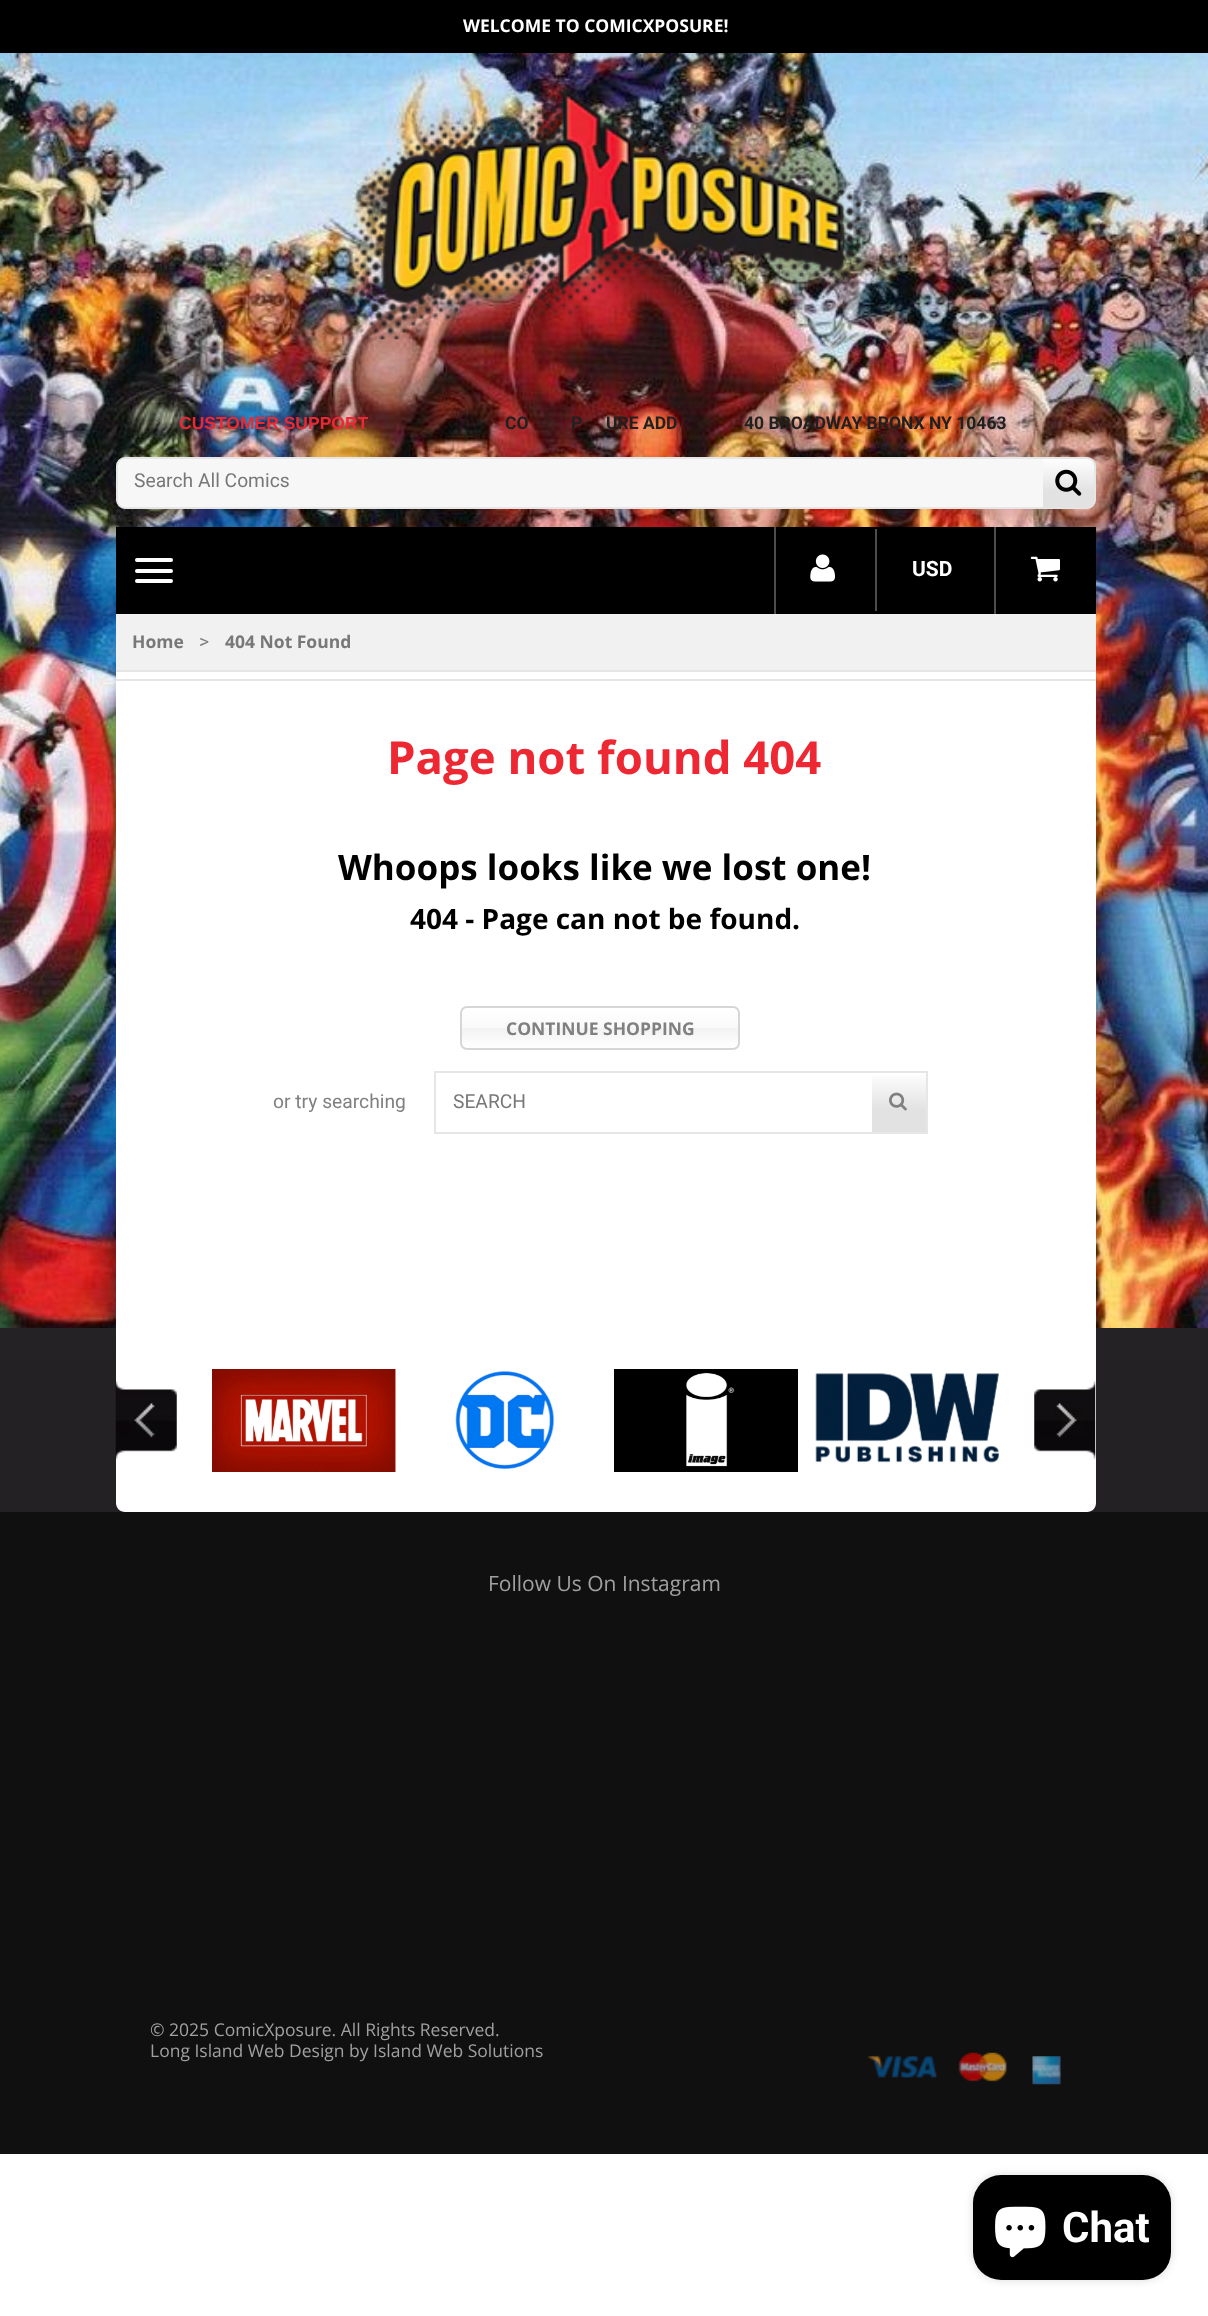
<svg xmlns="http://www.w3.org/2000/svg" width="1208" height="2316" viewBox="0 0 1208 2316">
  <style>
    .t1 { font: bold 17.5px Open Sans; fill: #fff; }
    .t2 { font: bold 17.5px Liberation Sans; fill: #ee2833; }
    .t3 { font: bold 17.5px Roboto; fill: #202020; }
    .t4 { font: 19.25px Roboto; fill: #787878; }
    .t5 { font: bold 21px Roboto; fill: #fff; }
    .t6 { font: bold 17.5px Open Sans; fill: #787878; }
    .t7 { font: 19.25px Roboto; fill: #818080; }
    .t8 { font: bold 45.5px Open Sans; fill: #ee2833; }
    .t9 { font: bold 35px Open Sans; fill: #000; }
    .t10 { font: bold 28px Open Sans; fill: #000; }
    .t11 { font: bold 17.5px Open Sans; fill: #818080; }
    .t12 { font: 21px Open Sans; fill: #a0a0a0; }
    .t13 { font: 17.5px Open Sans; fill: #a0a0a0; }
    .t14 { font: bold 42px Roboto; fill: #fff; }
  </style>
  <defs>
    <clipPath id="clip1"><rect x="117" y="459" width="977" height="49" rx="7"/></clipPath>
    <linearGradient id="g1" gradientUnits="userSpaceOnUse" x1="1068" y1="459" x2="1068" y2="511"><stop offset="0" stop-color="#fefefe"/><stop offset="0.21" stop-color="#f5f5f5"/><stop offset="0.62" stop-color="#e2e2e2"/><stop offset="1" stop-color="#e2e2e2"/></linearGradient>
    <clipPath id="clip2"><rect x="460" y="1006" width="280" height="44" rx="7"/></clipPath>
    <linearGradient id="g2" gradientUnits="userSpaceOnUse" x1="600" y1="1008" x2="600" y2="1048"><stop offset="0" stop-color="#fff"/><stop offset="0.5" stop-color="#f9f9f9"/><stop offset="0.51" stop-color="#f2f2f2"/><stop offset="1" stop-color="#fff"/></linearGradient>
    <linearGradient id="g3" gradientUnits="userSpaceOnUse" x1="899" y1="1073" x2="899" y2="1132"><stop offset="0" stop-color="#fefefe"/><stop offset="0.21" stop-color="#f5f5f5"/><stop offset="0.62" stop-color="#e2e2e2"/><stop offset="1" stop-color="#e2e2e2"/></linearGradient>
    <linearGradient id="g4" gradientUnits="userSpaceOnUse" x1="605" y1="1328" x2="605" y2="1512"><stop offset="0" stop-color="#252225"/><stop offset="0.47" stop-color="#242124"/><stop offset="1" stop-color="#242124"/></linearGradient>
  </defs>
  <rect width="100%" height="100%" fill="#fff"/>
  <image x="0" y="53" width="1208" height="1275" href="images/1.png"/>
  <rect x="0" y="0" width="1208" height="53" fill="#000"/>
  <text x="463" y="32" class="t1">WELCOME TO COMICXPOSURE!</text>
  <image x="343" y="79" width="525" height="261" href="images/2.png"/>
  <text x="179" y="429" class="t2">CUSTOMER SUPPORT</text>
  <text x="505" y="429" class="t3">CO</text>
  <text x="571" y="429" class="t3">P</text>
  <text x="606" y="429" class="t3">URE ADD</text>
  <text x="744" y="429" class="t3">40 BROADWAY BRONX NY 10463</text>
  <rect x="1020" y="415" width="2" height="17" fill="#ffffff33"/>
  <rect x="117" y="458" width="978" height="50" rx="8" fill="#f7f7f7" stroke="#e6e6e6" stroke-width="2"/>
  <text x="134" y="487" class="t4">Search All Comics</text>
  <g clip-path="url(#clip1)">
    <path d="M1043 459H1085C1090 459 1094 463 1094 468V502C1094 507 1090 511 1085 511H1043Z" fill="url(#g1)"/>
  </g>
  <image x="1055" y="469" width="27" height="27" href="images/3.png"/>
  <rect x="116" y="527" width="980" height="87" fill="#000"/>
  <rect x="135" y="558" width="38" height="4" rx="2" fill="#fff"/>
  <rect x="135" y="569" width="38" height="4" rx="2" fill="#fff"/>
  <rect x="135" y="579" width="38" height="4" rx="2" fill="#fff"/>
  <rect x="774" y="527" width="2" height="87" fill="#4d4d4d"/>
  <image x="810" y="554" width="25" height="28" href="images/4.png"/>
  <rect x="875" y="529" width="2" height="82" fill="#4d4d4d"/>
  <text x="912" y="576" class="t5">USD</text>
  <rect x="994" y="527" width="2" height="87" fill="#4d4d4d"/>
  <image x="1030" y="556" width="30" height="26" href="images/5.png"/>
  <rect x="116" y="672" width="980" height="656" fill="#fff"/>
  <rect x="116" y="679" width="980" height="2" fill="#e5e5e5"/>
  <rect x="116" y="614" width="980" height="56" fill="#f1f1f1"/>
  <rect x="116" y="670" width="980" height="2" fill="#e5e5e5"/>
  <text x="132" y="648" class="t6">Home</text>
  <text x="199" y="648" class="t7">&gt;</text>
  <text x="225" y="648" class="t6">404 Not Found</text>
  <text x="387" y="774" class="t8">Page not found 404</text>
  <text x="338" y="880" class="t9">Whoops looks like we lost one!</text>
  <text x="410" y="929" class="t10">404 - Page can not be found.</text>
  <g clip-path="url(#clip2)">
    <rect x="460" y="1008" width="280" height="40" fill="url(#g2)"/>
  </g>
  <rect x="461" y="1007" width="278" height="42" rx="6" fill="none" stroke="#d6d6d6" stroke-width="2"/>
  <text x="506" y="1035" class="t11">CONTINUE SHOPPING</text>
  <text x="273" y="1108" class="t7">or try searching</text>
  <rect x="435" y="1072" width="492" height="61" fill="none" stroke="#e6e6e6" stroke-width="2"/>
  <text x="453" y="1108" class="t4">SEARCH</text>
  <rect x="872" y="1075" width="54" height="57" fill="url(#g3)"/>
  <image x="889" y="1092" width="18" height="19" href="images/6.png"/>
  <rect x="0" y="1328" width="1208" height="184" fill="url(#g4)"/>
  <path d="M116 1328H1096V1503C1096 1508 1092 1512 1087 1512H125C120 1512 116 1508 116 1503Z" fill="#fff"/>
  <image x="212" y="1369" width="184" height="103" href="images/7.png"/>
  <image x="455" y="1371" width="100" height="99" href="images/8.png"/>
  <image x="614" y="1369" width="184" height="103" href="images/9.png"/>
  <image x="815" y="1373" width="184" height="90" href="images/10.png"/>
  <image x="115" y="1380" width="62" height="80" href="images/11.png"/>
  <image x="1034" y="1380" width="62" height="80" href="images/12.png"/>
  <rect x="0" y="1512" width="1208" height="642" fill="#101010"/>
  <text x="488" y="1591" class="t12">Follow Us On Instagram</text>
  <text x="150" y="2036" class="t13">© 2025 ComicXposure. All Rights Reserved.</text>
  <text x="150" y="2057" class="t13">Long Island Web Design by Island Web Solutions</text>
  <image x="868" y="2055" width="69" height="23" href="images/13.png"/>
  <image x="958" y="2052" width="49" height="30" href="images/14.png"/>
  <image x="1032" y="2056" width="29" height="29" href="images/15.png"/>
  <rect x="973" y="2175" width="198" height="105" rx="28" fill="#00000026" filter="blur(4.5px)"/>
  <rect x="973" y="2175" width="198" height="105" rx="28" fill="#000"/>
  <image x="995" y="2206" width="51" height="52" href="images/16.png"/>
  <text x="1062" y="2242" class="t14">Chat</text>
</svg>
